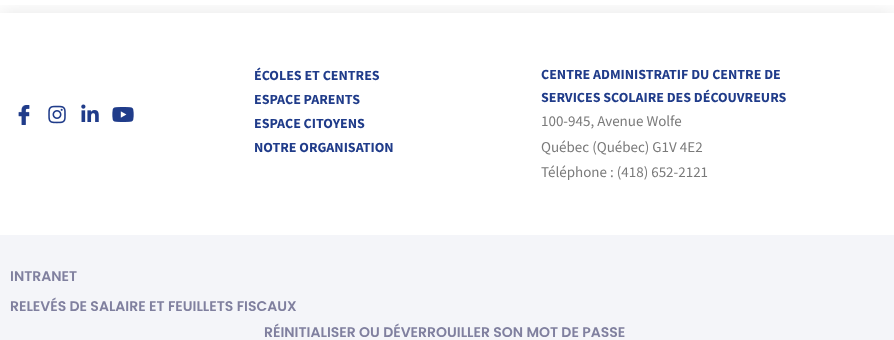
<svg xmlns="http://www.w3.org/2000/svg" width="894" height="340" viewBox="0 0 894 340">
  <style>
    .t1 { font: bold 14px Source Sans Pro; fill: #203c8a; }
    .t2 { font: 15px Source Sans Pro; fill: #7a7a7a; }
    .t3 { font: 600 14px Poppins; fill: #80809f; }
  </style>
  <defs>
    <clipPath id="clip1"><rect x="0" y="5" width="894" height="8"/></clipPath>
  </defs>
  <rect width="100%" height="100%" fill="#fff"/>
  <g clip-path="url(#clip1)">
    <rect x="0" y="13" width="894" height="222" fill="#0000001a" filter="blur(10px)"/>
  </g>
  <image x="18" y="105" width="12" height="20" href="images/1.png"/>
  <image x="48" y="105" width="18" height="19" href="images/2.png"/>
  <image x="81" y="104" width="18" height="18" href="images/3.png"/>
  <image x="112" y="107" width="22" height="15" href="images/4.png"/>
  <text x="254" y="80" class="t1">ÉCOLES ET CENTRES</text>
  <text x="254" y="104" class="t1">ESPACE PARENTS</text>
  <text x="254" y="128" class="t1">ESPACE CITOYENS</text>
  <text x="254" y="152" class="t1">NOTRE ORGANISATION</text>
  <text x="541" y="79" class="t1">CENTRE ADMINISTRATIF DU CENTRE DE</text>
  <text x="541" y="102" class="t1">SERVICES SCOLAIRE DES DÉCOUVREURS</text>
  <text x="541" y="126" class="t2">100-945, Avenue Wolfe</text>
  <text x="541" y="152" class="t2">Québec (Québec) G1V 4E2</text>
  <text x="541" y="177" class="t2">Téléphone : (418) 652-2121</text>
  <rect x="0" y="235" width="894" height="105" fill="#f4f5f9"/>
  <text x="10" y="281" class="t3">INTRANET</text>
  <text x="10" y="311" class="t3">RELEVÉS DE SALAIRE ET FEUILLETS FISCAUX</text>
  <text x="264" y="337" class="t3">RÉINITIALISER OU DÉVERROUILLER SON MOT DE PASSE</text>
</svg>
